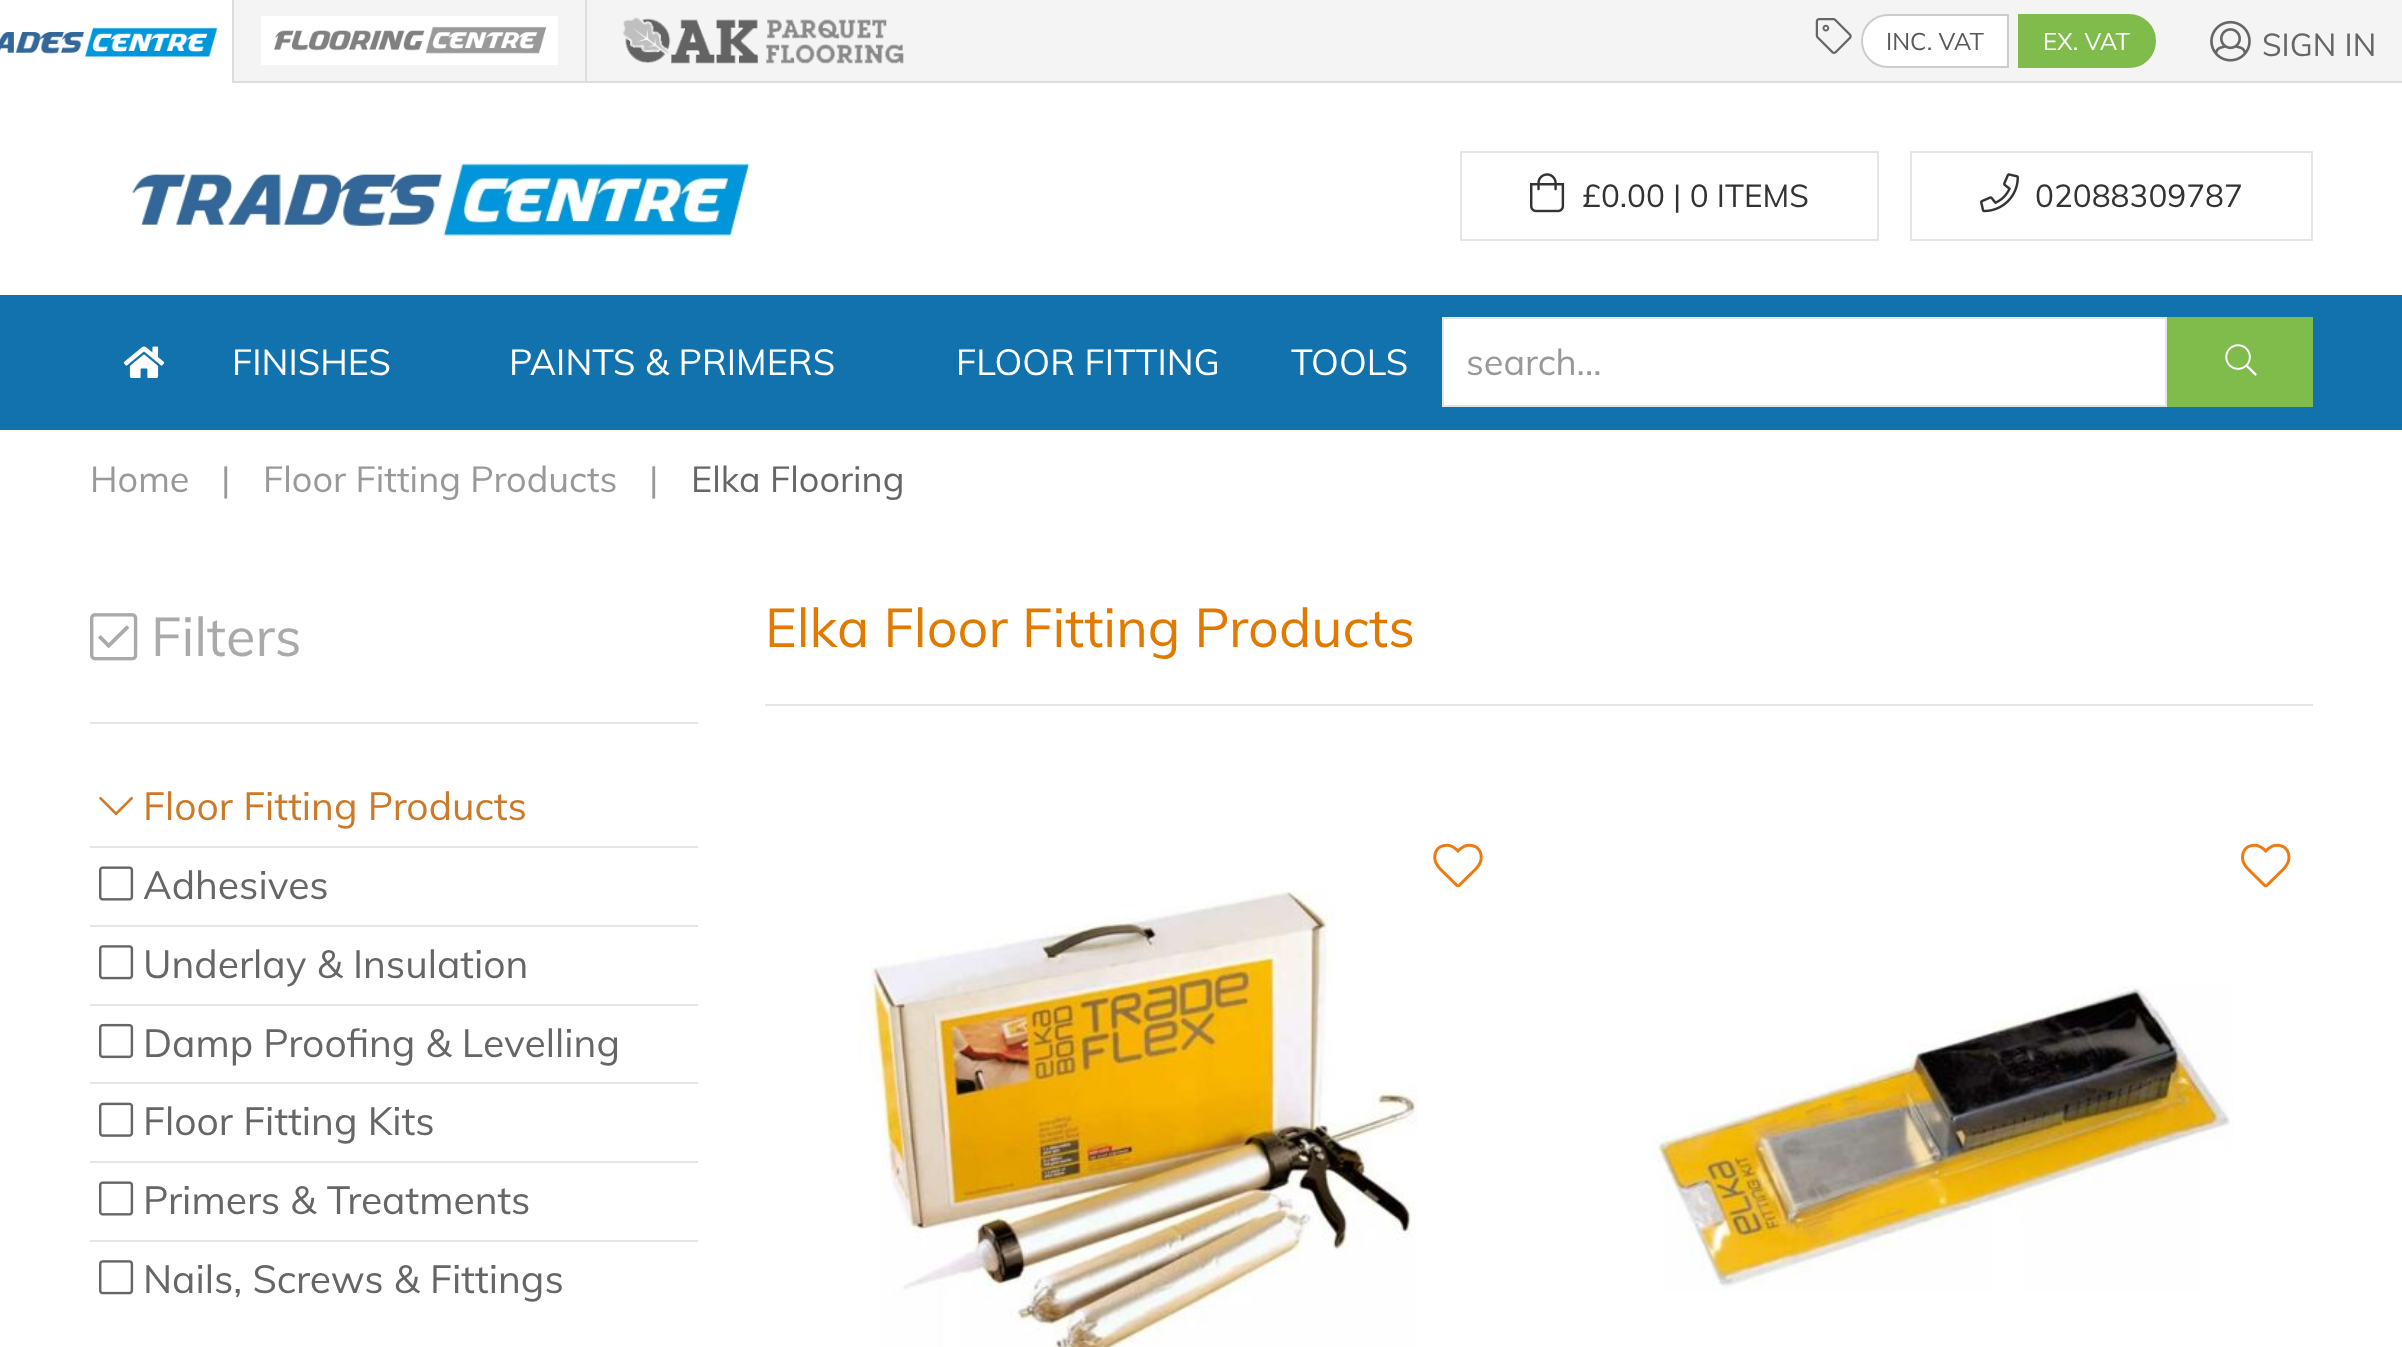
<svg xmlns="http://www.w3.org/2000/svg" width="2402" height="1347" viewBox="0 0 2402 1347">
  <style>
    .t1 { font: 24px Muli; fill: #595959; }
    .t2 { font: 24px Muli; fill: #fff; }
    .t3 { font: 31.5px Muli; fill: #666; }
    .t4 { font: 31.5px Muli; fill: #333; }
    .t5 { font: 36px Muli; fill: #fff; }
    .t6 { font: 36px Muli; fill: #999; }
    .t7 { font: 36px Muli; fill: #666; }
    .t8 { font: 54px Muli; fill: #aaa; }
    .t9 { font: 39px Muli; fill: #cc7a29; }
    .t10 { font: 39px Muli; fill: #666; }
    .t11 { font: 54px Muli; fill: #e07a00; }
  </style>
  <rect width="100%" height="100%" fill="#fff"/>
  <rect x="234" y="0" width="2168" height="81" fill="#f4f4f4"/>
  <rect x="232" y="0" width="2" height="83" fill="#ddd"/>
  <image x="0" y="27" width="218" height="30" href="images/1.png"/>
  <rect x="585" y="0" width="2" height="83" fill="#ddd"/>
  <rect x="234" y="81" width="2168" height="2" fill="#ddd"/>
  <image x="261" y="16" width="297" height="49" href="images/2.png"/>
  <image x="622" y="17" width="282" height="47" href="images/3.png"/>
  <image x="1815" y="18" width="37" height="36" href="images/4.png"/>
  <path d="M1888 15H2008V67H1888C1873.5 67 1862 55.5 1862 41C1862 26.5 1873.5 15 1888 15Z" fill="#fff" stroke="#ccc" stroke-width="2"/>
  <text x="1886" y="50" class="t1">INC. VAT</text>
  <path d="M2019 15H2129C2143.5 15 2155 26.5 2155 41C2155 55.5 2143.5 67 2129 67H2019Z" fill="#7fbc4c" stroke="#7fbc4c" stroke-width="2"/>
  <text x="2043" y="50" class="t2">EX. VAT</text>
  <image x="2210" y="20" width="41" height="42" href="images/5.png"/>
  <text x="2262" y="56" class="t3">SIGN IN</text>
  <image x="132" y="162" width="618" height="75" href="images/6.png"/>
  <rect x="1461" y="152" width="417" height="88" fill="none" stroke="#e5e5e5" stroke-width="2"/>
  <image x="1530" y="173" width="35" height="40" href="images/7.png"/>
  <text x="1582" y="207" class="t4">£0.00 | 0 ITEMS</text>
  <rect x="1911" y="152" width="401" height="88" fill="none" stroke="#e5e5e5" stroke-width="2"/>
  <image x="1980" y="173" width="39" height="40" href="images/8.png"/>
  <text x="2035" y="207" class="t4">02088309787</text>
  <rect x="0" y="295" width="2402" height="135" fill="#1272ae"/>
  <image x="123" y="346" width="42" height="32" href="images/9.png"/>
  <text x="232" y="375" class="t5">FINISHES</text>
  <text x="509" y="375" class="t5">PAINTS &amp; PRIMERS</text>
  <text x="956" y="375" class="t5">FLOOR FITTING</text>
  <text x="1291" y="375" class="t5">TOOLS</text>
  <rect x="1443" y="318" width="723" height="88" fill="#fff" stroke="#e5e5e5" stroke-width="2"/>
  <text x="1466" y="375" class="t6">search...</text>
  <rect x="2167" y="317" width="146" height="90" fill="#7fbc4c"/>
  <image x="2225" y="344" width="32" height="32" href="images/10.png"/>
  <text x="90" y="492" class="t6">Home</text>
  <text x="221" y="492" class="t6">|</text>
  <text x="263" y="492" class="t6">Floor Fitting Products</text>
  <text x="649" y="492" class="t6">|</text>
  <text x="691" y="492" class="t7">Elka Flooring</text>
  <image x="90" y="613" width="48" height="48" href="images/11.png"/>
  <text x="151" y="656" class="t8">Filters</text>
  <rect x="90" y="722" width="608" height="2" fill="#e5e5e5"/>
  <image x="99" y="796" width="34" height="20" href="images/12.png"/>
  <text x="143" y="820" class="t9">Floor Fitting Products</text>
  <rect x="90" y="846" width="608" height="2" fill="#e5e5e5"/>
  <image x="99" y="866" width="35" height="35" href="images/13.png"/>
  <text x="143" y="899" class="t10">Adhesives</text>
  <rect x="90" y="925" width="608" height="2" fill="#e5e5e5"/>
  <image x="99" y="945" width="35" height="35" href="images/14.png"/>
  <text x="143" y="978" class="t10">Underlay &amp; Insulation</text>
  <rect x="90" y="1004" width="608" height="2" fill="#e5e5e5"/>
  <image x="99" y="1023" width="35" height="36" href="images/15.png"/>
  <text x="143" y="1057" class="t10">Damp Proofing &amp; Levelling</text>
  <rect x="90" y="1082" width="608" height="2" fill="#e5e5e5"/>
  <image x="99" y="1102" width="35" height="35" href="images/16.png"/>
  <text x="143" y="1135" class="t10">Floor Fitting Kits</text>
  <rect x="90" y="1161" width="608" height="2" fill="#e5e5e5"/>
  <image x="99" y="1181" width="35" height="35" href="images/17.png"/>
  <text x="143" y="1214" class="t10">Primers &amp; Treatments</text>
  <rect x="90" y="1240" width="608" height="2" fill="#e5e5e5"/>
  <image x="99" y="1260" width="35" height="35" href="images/18.png"/>
  <text x="143" y="1293" class="t10">Nails, Screws &amp; Fittings</text>
  <text x="765" y="647" class="t11">Elka Floor Fitting Products</text>
  <rect x="765" y="704" width="1548" height="2" fill="#e5e5e5"/>
  <image x="1433" y="843" width="50" height="45" href="images/19.png"/>
  <image x="858" y="888" width="560" height="459" href="images/20.png"/>
  <image x="2241" y="843" width="50" height="45" href="images/21.png"/>
  <image x="1650" y="985" width="584" height="306" href="images/22.png"/>
</svg>
